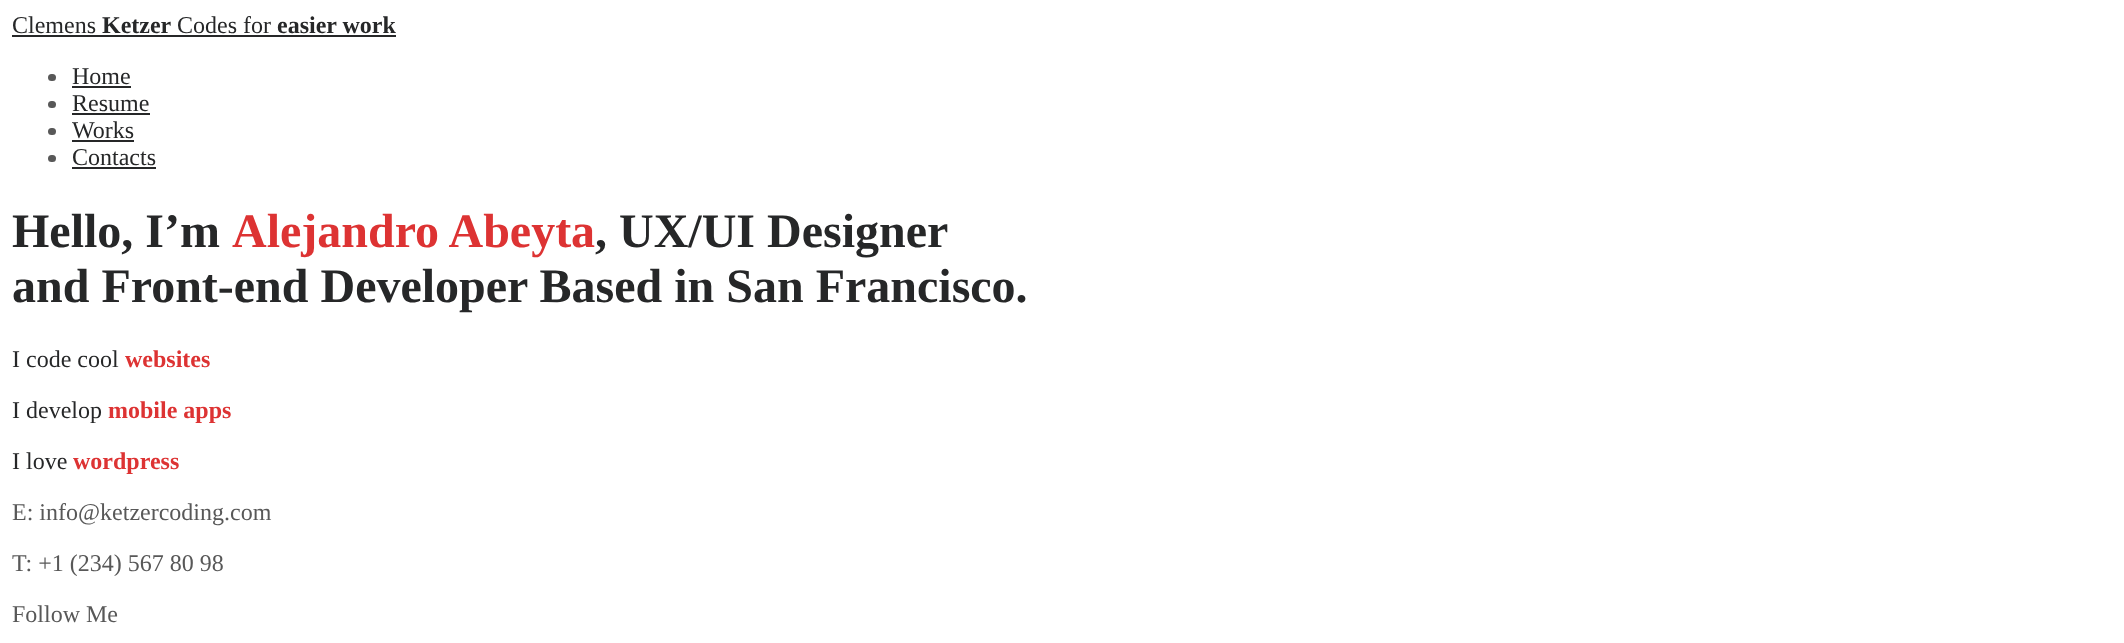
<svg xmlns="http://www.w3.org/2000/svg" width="2124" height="643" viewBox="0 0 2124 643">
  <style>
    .t1 { font: 24px Liberation Serif; fill: #262728; }
    .t2 { font: bold 24px Liberation Serif; fill: #262728; }
    .t3 { font: bold 48px Liberation Serif; fill: #262728; }
    .t4 { font: bold 48px Liberation Serif; fill: #d33; }
    .t5 { font: bold 24px Liberation Serif; fill: #d33; }
    .t6 { font: 24px Liberation Serif; fill: #585858; }
  </style>
  <rect width="100%" height="100%" fill="#fff"/>
  <text x="12" y="33" class="t1">Clemens</text>
  <text x="102" y="33" class="t2">Ketzer</text>
  <rect x="12" y="35" width="384" height="2" fill="#262728"/>
  <text x="177" y="33" class="t1">Codes for</text>
  <text x="277" y="33" class="t2">easier work</text>
  <rect x="48" y="74" width="8" height="7" rx="3.5" fill="#585858"/>
  <text x="72" y="84" class="t1">Home</text>
  <rect x="72" y="86" width="59" height="2" fill="#262728"/>
  <rect x="48" y="101" width="8" height="7" rx="3.5" fill="#585858"/>
  <text x="72" y="111" class="t1">Resume</text>
  <rect x="72" y="113" width="78" height="2" fill="#262728"/>
  <rect x="48" y="128" width="8" height="7" rx="3.5" fill="#585858"/>
  <text x="72" y="138" class="t1">Works</text>
  <rect x="72" y="140" width="62" height="2" fill="#262728"/>
  <rect x="48" y="155" width="8" height="7" rx="3.5" fill="#585858"/>
  <text x="72" y="165" class="t1">Contacts</text>
  <rect x="72" y="167" width="84" height="2" fill="#262728"/>
  <text x="12" y="247" class="t3">Hello, I’m</text>
  <text x="232" y="247" class="t4">Alejandro Abeyta</text>
  <text x="595" y="247" class="t3">, UX/UI Designer</text>
  <text x="12" y="302" class="t3">and Front-end Developer Based in San Francisco.</text>
  <text x="12" y="367" class="t1">I code cool</text>
  <text x="125" y="367" class="t5">websites</text>
  <text x="12" y="418" class="t1">I develop</text>
  <text x="108" y="418" class="t5">mobile apps</text>
  <text x="12" y="469" class="t1">I love</text>
  <text x="73" y="469" class="t5">wordpress</text>
  <text x="12" y="520" class="t6">E: info@ketzercoding.com</text>
  <text x="12" y="571" class="t6">T: +1 (234) 567 80 98</text>
  <text x="12" y="622" class="t6">Follow Me</text>
</svg>
